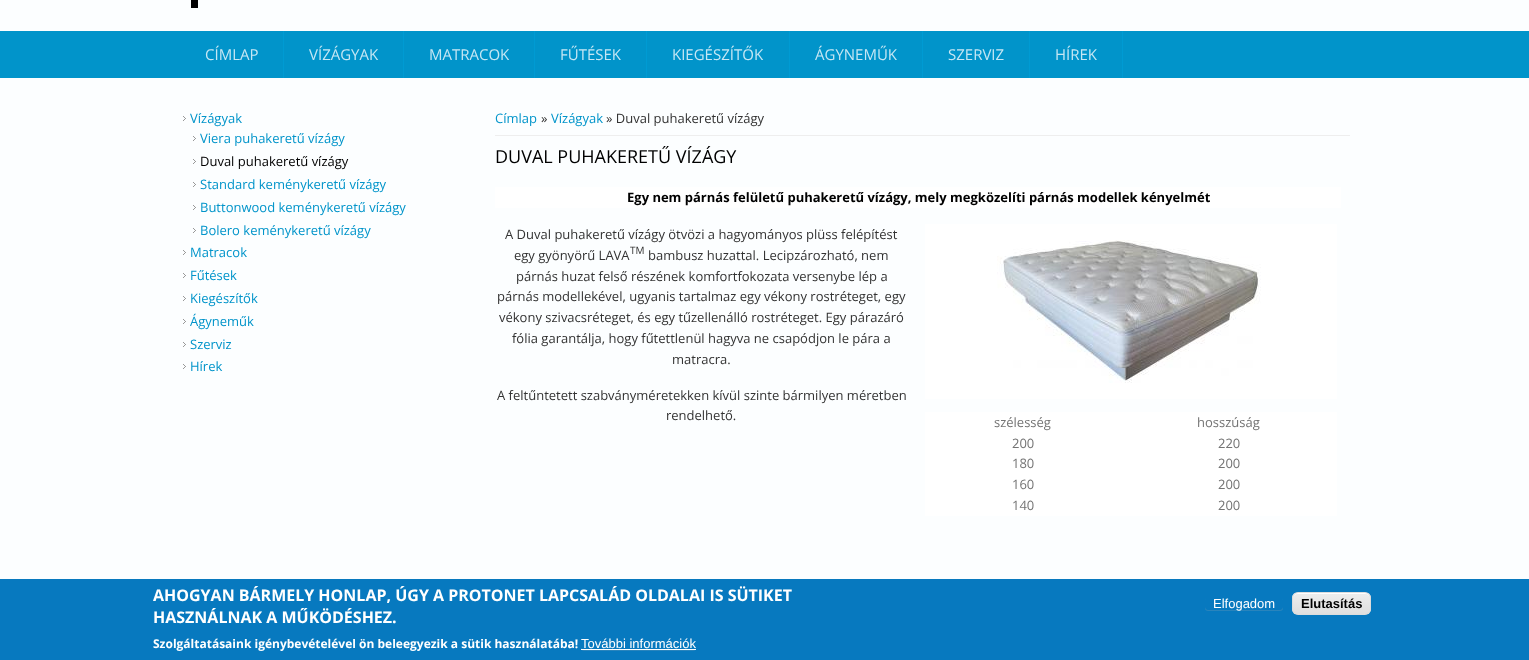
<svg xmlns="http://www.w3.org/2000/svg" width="1529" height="660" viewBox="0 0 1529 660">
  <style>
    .t1 { font: 15px Open Sans; fill: #c6e7f4; }
    .t2 { font: 13px Open Sans; fill: #0194ca; }
    .t3 { font: 13px Open Sans; fill: #000; }
    .t4 { font: 13px Open Sans; fill: #333; }
    .t5 { font: 18px Open Sans; fill: #000; }
    .t6 { font: bold 13px Open Sans; fill: #000; }
    .t7 { font: 10px Open Sans; fill: #333; }
    .t8 { font: 13px Open Sans; fill: #747474; }
    .t9 { font: bold 16px Open Sans; fill: #fff; }
    .t10 { font: bold 12px Open Sans; fill: #fff; }
    .t11 { font: 13px Liberation Sans; fill: #fff; }
    .t12 { font: bold 13px Liberation Sans; fill: #000; }
  </style>
  <defs>
    <clipPath id="clip1"><path d="M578 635H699V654H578ZM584 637H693C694.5 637 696 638.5 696 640V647C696 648.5 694.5 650 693 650H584C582.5 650 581 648.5 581 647V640C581 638.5 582.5 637 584 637Z" clip-rule="evenodd"/></clipPath>
    <clipPath id="clip2"><path d="M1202 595H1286V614H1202ZM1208 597H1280C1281.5 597 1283 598.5 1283 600V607C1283 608.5 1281.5 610 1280 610H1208C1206.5 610 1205 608.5 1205 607V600C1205 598.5 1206.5 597 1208 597Z" clip-rule="evenodd"/></clipPath>
    <clipPath id="clip3"><rect x="1292" y="592" width="79" height="23" rx="6"/></clipPath>
    <linearGradient id="g1" gradientUnits="userSpaceOnUse" x1="1332" y1="593" x2="1332" y2="614"><stop offset="0.05" stop-color="#ededed"/><stop offset="1" stop-color="#dfdfdf"/></linearGradient>
  </defs>
  <rect width="100%" height="100%" fill="#fcfeff"/>
  <rect x="191" y="0" width="7" height="8" fill="#000"/>
  <rect x="0" y="31" width="1529" height="47" fill="#0194ca"/>
  <rect x="283" y="31" width="1" height="47" fill="#009bd3"/>
  <text x="205" y="60" class="t1">CÍMLAP</text>
  <rect x="403" y="31" width="1" height="47" fill="#009bd3"/>
  <text x="309" y="60" class="t1">VÍZÁGYAK</text>
  <rect x="534" y="31" width="1" height="47" fill="#009bd3"/>
  <text x="429" y="60" class="t1">MATRACOK</text>
  <rect x="646" y="31" width="1" height="47" fill="#009bd3"/>
  <text x="560" y="60" class="t1">FŰTÉSEK</text>
  <rect x="789" y="31" width="1" height="47" fill="#009bd3"/>
  <text x="672" y="60" class="t1">KIEGÉSZÍTŐK</text>
  <rect x="922" y="31" width="1" height="47" fill="#009bd3"/>
  <text x="815" y="60" class="t1">ÁGYNEMŰK</text>
  <rect x="1029" y="31" width="1" height="47" fill="#009bd3"/>
  <text x="948" y="60" class="t1">SZERVIZ</text>
  <rect x="1122" y="31" width="1" height="47" fill="#009bd3"/>
  <text x="1055" y="60" class="t1">HÍREK</text>
  <image x="183" y="116" width="3" height="5" href="images/1.png"/>
  <text x="190" y="123" class="t2">Vízágyak</text>
  <image x="193" y="136" width="3" height="5" href="images/1.png"/>
  <text x="200" y="143" class="t2">Viera puhakeretű vízágy</text>
  <image x="193" y="159" width="3" height="5" href="images/1.png"/>
  <text x="200" y="166" class="t3">Duval puhakeretű vízágy</text>
  <image x="193" y="182" width="3" height="5" href="images/1.png"/>
  <text x="200" y="189" class="t2">Standard keménykeretű vízágy</text>
  <image x="193" y="205" width="3" height="5" href="images/1.png"/>
  <text x="200" y="212" class="t2">Buttonwood keménykeretű vízágy</text>
  <image x="193" y="228" width="3" height="5" href="images/1.png"/>
  <text x="200" y="235" class="t2">Bolero keménykeretű vízágy</text>
  <image x="183" y="250" width="3" height="5" href="images/1.png"/>
  <text x="190" y="257" class="t2">Matracok</text>
  <image x="183" y="273" width="3" height="5" href="images/1.png"/>
  <text x="190" y="280" class="t2">Fűtések</text>
  <image x="183" y="296" width="3" height="5" href="images/1.png"/>
  <text x="190" y="303" class="t2">Kiegészítők</text>
  <image x="183" y="319" width="3" height="5" href="images/1.png"/>
  <text x="190" y="326" class="t2">Ágyneműk</text>
  <image x="183" y="342" width="3" height="5" href="images/1.png"/>
  <text x="190" y="349" class="t2">Szerviz</text>
  <image x="183" y="364" width="3" height="5" href="images/1.png"/>
  <text x="190" y="371" class="t2">Hírek</text>
  <rect x="495" y="135" width="855" height="1" fill="#eee"/>
  <text x="495" y="123" class="t2">Címlap</text>
  <text x="541" y="123" class="t4">»</text>
  <text x="551" y="123" class="t2">Vízágyak</text>
  <text x="606" y="123" class="t4">» Duval puhakeretű vízágy</text>
  <text x="495" y="163" class="t5">DUVAL PUHAKERETŰ VÍZÁGY</text>
  <rect x="495" y="187" width="846" height="21" fill="#fff"/>
  <text x="627" y="202" class="t6">Egy nem párnás felületű puhakeretű vízágy, mely megközelíti párnás modellek kényelmét</text>
  <text x="505" y="239" class="t4">A Duval puhakeretű vízágy ötvözi a hagyományos plüss felépítést</text>
  <text x="514" y="260" class="t4">egy gyönyörű LAVA</text>
  <text x="630" y="254" class="t7">TM</text>
  <text x="648" y="260" class="t4">bambusz huzattal. Lecipzározható, nem</text>
  <text x="516" y="281" class="t4">párnás huzat felső részének komfortfokozata versenybe lép a</text>
  <text x="497" y="301" class="t4">párnás modellekével, ugyanis tartalmaz egy vékony rostréteget, egy</text>
  <text x="499" y="322" class="t4">vékony szivacsréteget, és egy tűzellenálló rostréteget. Egy párazáró</text>
  <text x="512" y="343" class="t4">fólia garantálja, hogy fűtettlenül hagyva ne csapódjon le pára a</text>
  <text x="672" y="364" class="t4">matracra.</text>
  <text x="497" y="400" class="t4">A feltűntetett szabványméretekken kívül szinte bármilyen méretben</text>
  <text x="666" y="420" class="t4">rendelhető.</text>
  <rect x="925" y="224" width="412" height="175" fill="#fff"/>
  <image x="997" y="240" width="264" height="143" href="images/2.png"/>
  <rect x="925" y="412" width="412" height="21" fill="#fff"/>
  <text x="994" y="427" class="t8">szélesség</text>
  <text x="1197" y="427" class="t8">hosszúság</text>
  <rect x="925" y="433" width="412" height="20" fill="#fff"/>
  <text x="1012" y="448" class="t8">200</text>
  <text x="1218" y="448" class="t8">220</text>
  <rect x="925" y="453" width="412" height="21" fill="#fff"/>
  <text x="1012" y="468" class="t8">180</text>
  <text x="1218" y="468" class="t8">200</text>
  <rect x="925" y="474" width="412" height="21" fill="#fff"/>
  <text x="1012" y="489" class="t8">160</text>
  <text x="1218" y="489" class="t8">200</text>
  <rect x="925" y="495" width="412" height="21" fill="#fff"/>
  <text x="1012" y="510" class="t8">140</text>
  <text x="1218" y="510" class="t8">200</text>
  <rect x="0" y="579" width="1529" height="81" fill="#0779bf"/>
  <text x="153" y="601" class="t9">AHOGYAN BÁRMELY HONLAP, ÚGY A PROTONET LAPCSALÁD OLDALAI IS SÜTIKET</text>
  <text x="153" y="623" class="t9">HASZNÁLNAK A MŰKÖDÉSHEZ.</text>
  <text x="153" y="648" class="t10">Szolgáltatásaink igénybevételével ön beleegyezik a sütik használatába!</text>
  <g clip-path="url(#clip1)">
    <rect x="581" y="638" width="115" height="13" rx="3" fill="#b4b4b433" filter="blur(0.5px)"/>
  </g>
  <text x="581" y="648" class="t11">További információk</text>
  <rect x="581" y="649" width="115" height="1" fill="#fff"/>
  <g clip-path="url(#clip2)">
    <rect x="1205" y="598" width="78" height="13" rx="3" fill="#b4b4b433" filter="blur(0.5px)"/>
  </g>
  <text x="1213" y="608" class="t11">Elfogadom</text>
  <g clip-path="url(#clip3)">
    <rect x="1292" y="593" width="79" height="21" fill="url(#g1)"/>
  </g>
  <path d="M1298 594H1365C1368 594 1370 596 1370 599C1370 590 1360 593 1354 593H1309C1303 593 1293 590 1293 599C1293 596 1295 594 1298 594Z" fill="#fff"/>
  <rect x="1292.5" y="592.5" width="78" height="22" rx="5.5" fill="none" stroke="#dcdcdc"/>
  <text x="1301" y="608" class="t12">Elutasítás</text>
</svg>
